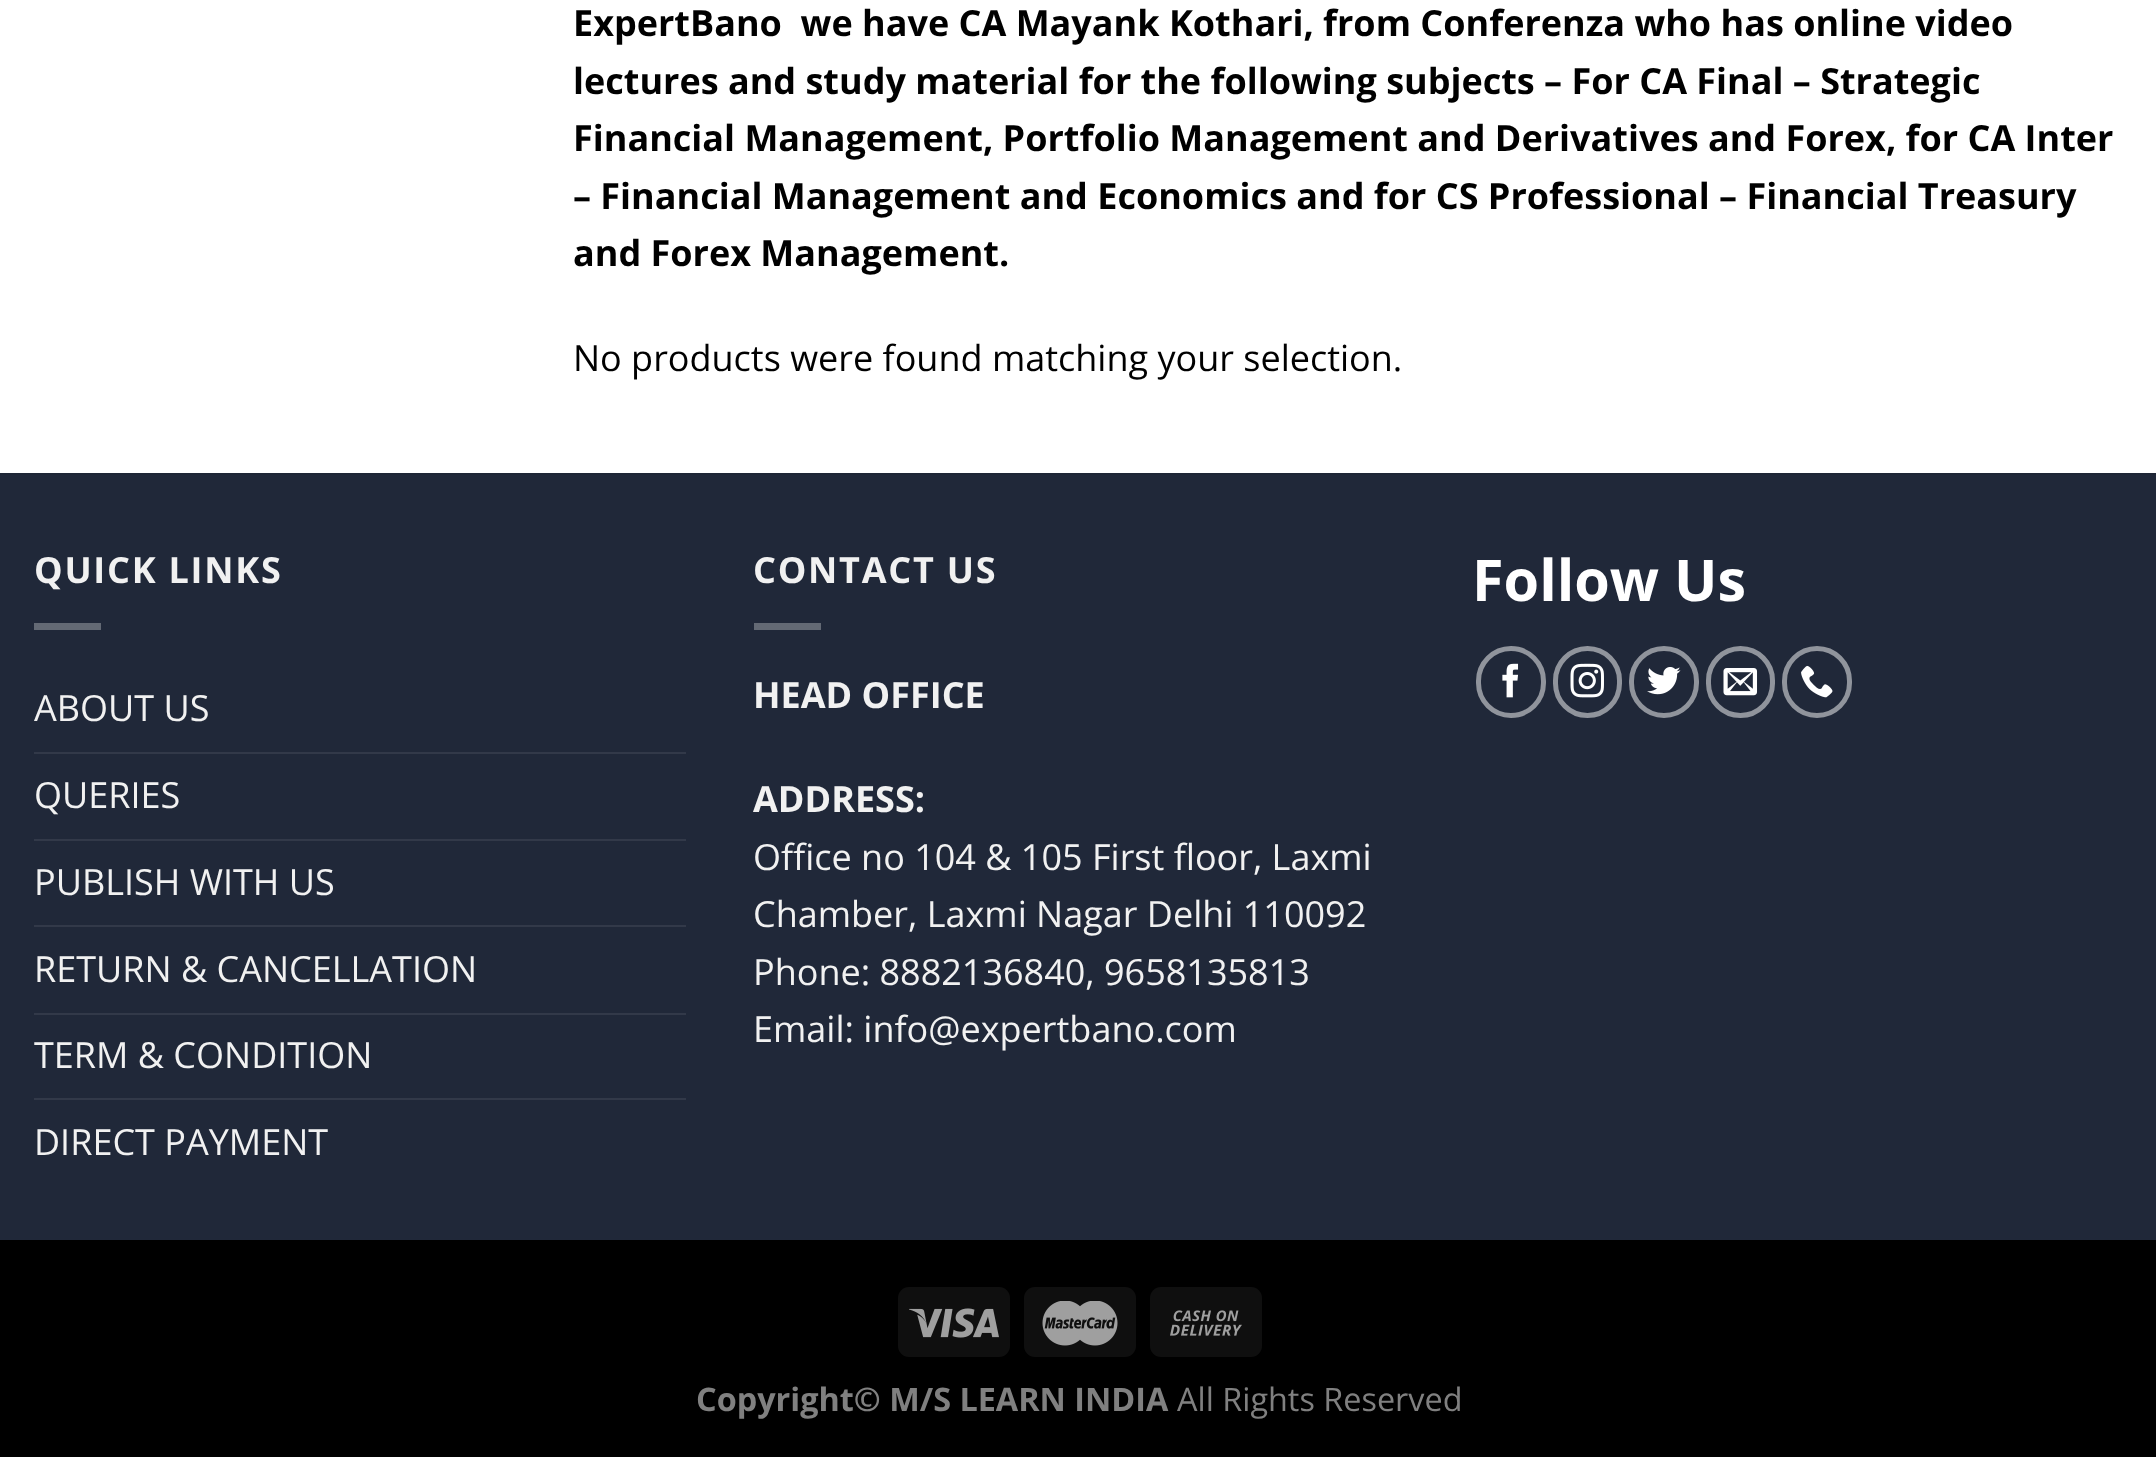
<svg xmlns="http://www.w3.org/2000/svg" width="2156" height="1457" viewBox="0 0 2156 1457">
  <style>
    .t1 { font: bold 36px Open Sans; fill: #000; }
    .t2 { font: 36px Open Sans; fill: #000; }
    .t3 { font: bold 36px Open Sans; letter-spacing: 1.75px; fill: #f1f1f1; }
    .t4 { font: 36px Open Sans; fill: #f1f1f1; }
    .t5 { font: bold 36px Open Sans; fill: #f1f1f1; }
    .t6 { font: bold 57.5px Open Sans; fill: #fff; }
    .t7 { font: bold 32.4px Open Sans; fill: #808080; }
    .t8 { font: 32.4px Open Sans; fill: #808080; }
  </style>
  <rect width="100%" height="100%" fill="#fff"/>
  <text x="573" y="36" class="t1" xml:space="preserve">ExpertBano  we have CA Mayank Kothari, from Conferenza who has online video</text>
  <text x="573" y="94" class="t1">lectures and study material for the following subjects – For CA Final – Strategic</text>
  <text x="573" y="151" class="t1">Financial Management, Portfolio Management and Derivatives and Forex, for CA Inter</text>
  <text x="573" y="209" class="t1">– Financial Management and Economics and for CS Professional – Financial Treasury</text>
  <text x="573" y="266" class="t1">and Forex Management.</text>
  <text x="573" y="371" class="t2">No products were found matching your selection.</text>
  <rect x="0" y="475" width="2156" height="765" fill="#202839"/>
  <rect x="0" y="473" width="2156" height="2" fill="#1e2636"/>
  <text x="34" y="583" class="t3">QUICK LINKS</text>
  <rect x="34" y="623" width="67" height="7" fill="#636974"/>
  <text x="34" y="721" class="t4">ABOUT US</text>
  <rect x="34" y="752" width="652" height="2" fill="#323949"/>
  <text x="34" y="808" class="t4">QUERIES</text>
  <rect x="34" y="839" width="652" height="2" fill="#323949"/>
  <text x="34" y="895" class="t4">PUBLISH WITH US</text>
  <rect x="34" y="925" width="652" height="2" fill="#323949"/>
  <text x="34" y="982" class="t4">RETURN &amp; CANCELLATION</text>
  <rect x="34" y="1013" width="652" height="2" fill="#323949"/>
  <text x="34" y="1068" class="t4">TERM &amp; CONDITION</text>
  <rect x="34" y="1098" width="652" height="2" fill="#323949"/>
  <text x="34" y="1155" class="t4">DIRECT PAYMENT</text>
  <text x="753" y="583" class="t3">CONTACT US</text>
  <rect x="754" y="623" width="67" height="7" fill="#636974"/>
  <text x="753" y="708" class="t5">HEAD OFFICE</text>
  <text x="753" y="812" class="t5">ADDRESS:</text>
  <text x="753" y="870" class="t4">Office no 104 &amp; 105 First floor, Laxmi</text>
  <text x="753" y="927" class="t4">Chamber, Laxmi Nagar Delhi 110092</text>
  <text x="753" y="985" class="t4">Phone: 8882136840, 9658135813</text>
  <text x="753" y="1042" class="t4">Email: info@expertbano.com</text>
  <text x="1472" y="601" class="t6">Follow Us</text>
  <rect x="1478.5" y="648.5" width="65" height="67" rx="32.5" fill="none" stroke="#90949c" stroke-width="5"/>
  <image x="1502" y="663" width="17" height="35" href="images/1.png"/>
  <rect x="1555.5" y="648.5" width="64" height="67" rx="32" fill="none" stroke="#90949c" stroke-width="5"/>
  <image x="1570" y="663" width="34" height="35" href="images/2.png"/>
  <rect x="1631.5" y="648.5" width="65" height="67" rx="32.5" fill="none" stroke="#90949c" stroke-width="5"/>
  <image x="1647" y="667" width="34" height="28" href="images/3.png"/>
  <rect x="1708.5" y="648.5" width="64" height="67" rx="32" fill="none" stroke="#90949c" stroke-width="5"/>
  <image x="1723" y="668" width="35" height="28" href="images/4.png"/>
  <rect x="1784.5" y="648.5" width="65" height="67" rx="32.5" fill="none" stroke="#90949c" stroke-width="5"/>
  <image x="1801" y="665" width="32" height="33" href="images/5.png"/>
  <rect x="0" y="1240" width="2156" height="217" fill="#000"/>
  <rect x="898" y="1287" width="112" height="70" rx="11" fill="#0f0f0f"/>
  <image x="909" y="1308" width="90" height="30" href="images/6.png"/>
  <rect x="1024" y="1287" width="112" height="70" rx="11" fill="#0f0f0f"/>
  <image x="1042" y="1301" width="76" height="45" href="images/7.png"/>
  <rect x="1150" y="1287" width="112" height="70" rx="11" fill="#0f0f0f"/>
  <image x="1170" y="1310" width="72" height="26" href="images/8.png"/>
  <text x="696" y="1411" class="t7">Copyright© M/S LEARN INDIA</text>
  <text x="1177" y="1411" class="t8">All Rights Reserved</text>
</svg>
